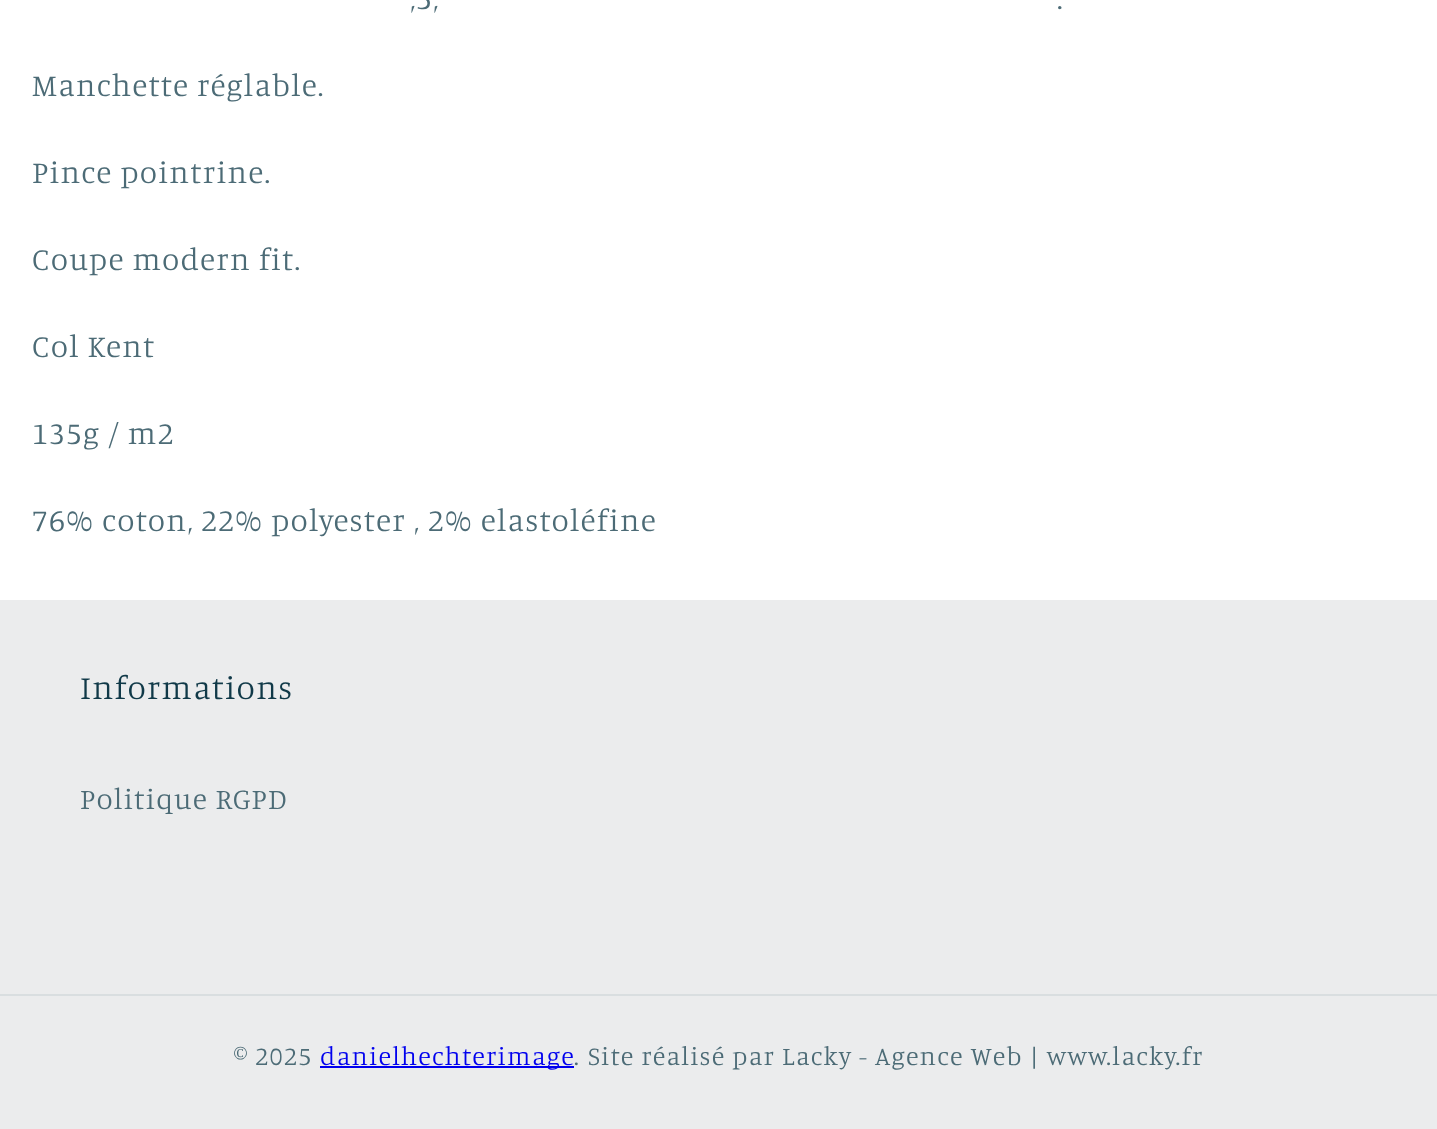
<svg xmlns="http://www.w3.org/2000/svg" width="1437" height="1129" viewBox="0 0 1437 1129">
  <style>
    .t1 { font: 300 31.5px Manuale; letter-spacing: 1.25px; fill: #4c6b76; }
    .t2 { font: 300 33.5px Manuale; letter-spacing: 1.25px; fill: #103948; }
    .t3 { font: 300 29.5px Manuale; letter-spacing: 1.25px; fill: #4c6b76; }
    .t4 { font: 300 26.25px Manuale; letter-spacing: 1.25px; fill: #4c6b76; }
    .t5 { font: 300 26.25px Manuale; letter-spacing: 1.25px; fill: #00e; }
  </style>
  <rect width="100%" height="100%" fill="#fff"/>
  <text x="410" y="9" class="t1">,5,</text>
  <text x="1057" y="9" class="t1">.</text>
  <text x="32" y="96" class="t1">Manchette réglable.</text>
  <text x="32" y="183" class="t1">Pince pointrine.</text>
  <text x="32" y="270" class="t1">Coupe modern fit.</text>
  <text x="32" y="357" class="t1">Col Kent</text>
  <text x="32" y="444" class="t1">135g / m2</text>
  <text x="32" y="531" class="t1">76% coton, 22% polyester , 2% elastoléfine</text>
  <rect x="0" y="600" width="1437" height="529" fill="#ebeced"/>
  <text x="80" y="699" class="t2">Informations</text>
  <text x="80" y="809" class="t3">Politique RGPD</text>
  <rect x="0" y="994" width="1437" height="2" fill="#d9dee0"/>
  <text x="234" y="1065" class="t4">© 2025</text>
  <rect x="320" y="1066" width="254" height="2" fill="#00e"/>
  <text x="320" y="1065" class="t5">danielhechterimage</text>
  <text x="574" y="1065" class="t4">.</text>
  <text x="588" y="1065" class="t4">Site réalisé par Lacky - Agence Web | www.lacky.fr</text>
</svg>
